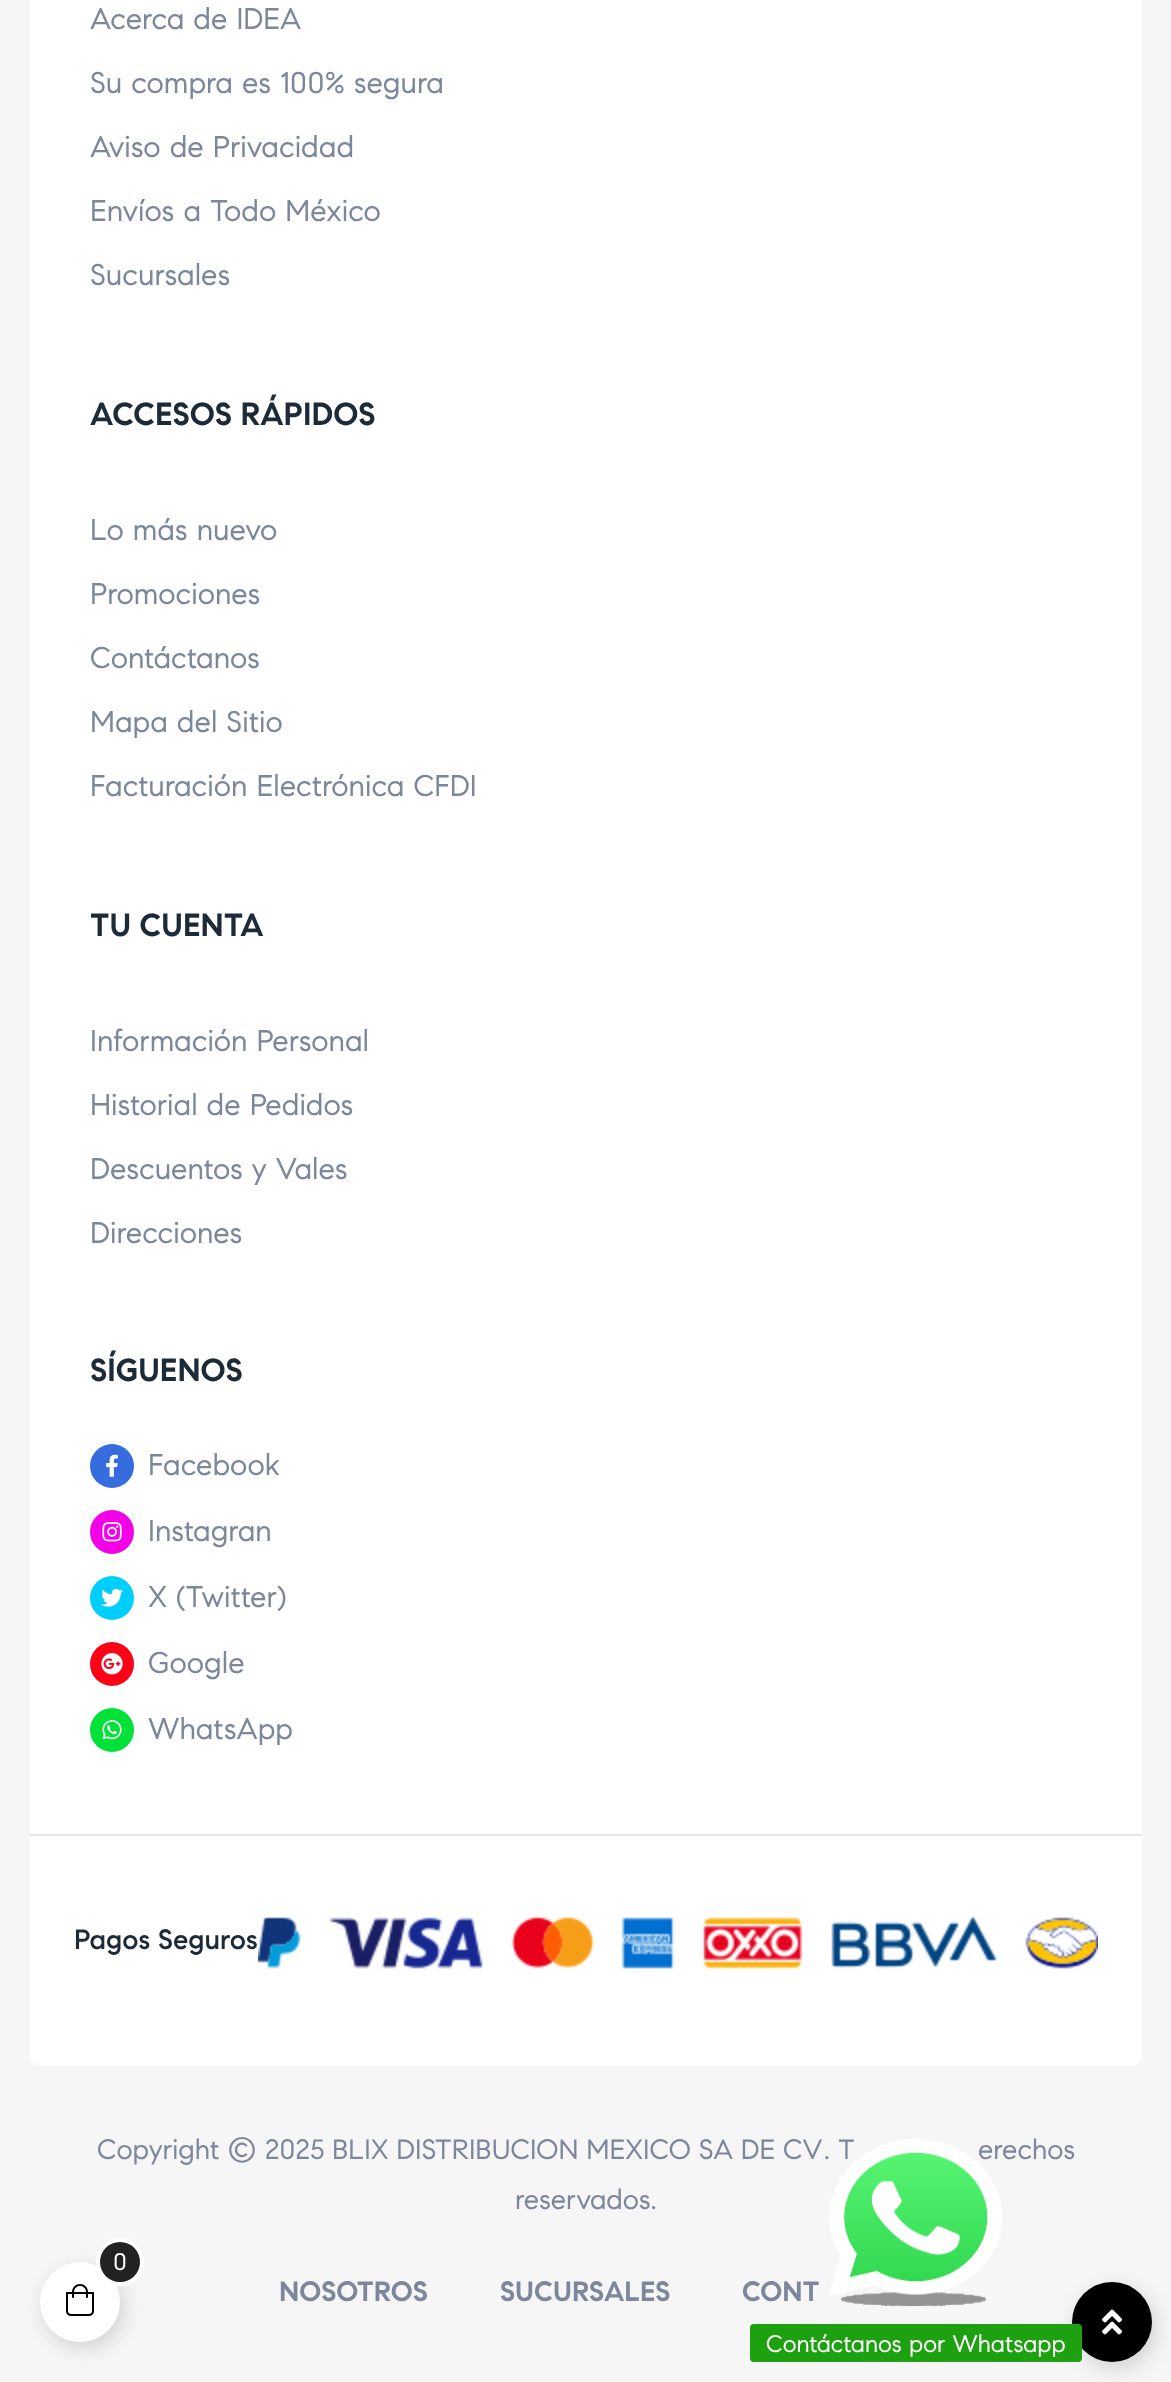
<svg xmlns="http://www.w3.org/2000/svg" width="1171" height="2382" viewBox="0 0 1171 2382">
  <style>
    .t1 { font: 30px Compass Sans; fill: #7d879c; }
    .t2 { font: bold 32px Compass Sans; fill: #1d2a38; }
    .t3 { font: 500 28px Compass Sans; fill: #1d2a38; }
    .t4 { font: 28px Compass Sans; fill: #7d879c; }
    .t5 { font: 24px Compass Sans; fill: #fff; }
    .t6 { font: bold 28px Compass Sans; fill: #7d879c; }
  </style>
  <rect width="100%" height="100%" fill="#f6f6f7"/>
  <rect x="30" y="0" width="1112" height="1834" fill="#fff"/>
  <rect x="30" y="1834" width="1112" height="2" fill="#e5e5e5"/>
  <text x="90" y="29" class="t1">Acerca de IDEA</text>
  <text x="90" y="93" class="t1">Su compra es 100% segura</text>
  <text x="90" y="157" class="t1">Aviso de Privacidad</text>
  <text x="90" y="221" class="t1">Envíos a Todo México</text>
  <text x="90" y="285" class="t1">Sucursales</text>
  <text x="90" y="425" class="t2">ACCESOS RÁPIDOS</text>
  <text x="90" y="540" class="t1">Lo más nuevo</text>
  <text x="90" y="604" class="t1">Promociones</text>
  <text x="90" y="668" class="t1">Contáctanos</text>
  <text x="90" y="732" class="t1">Mapa del Sitio</text>
  <text x="90" y="796" class="t1">Facturación Electrónica CFDI</text>
  <text x="90" y="936" class="t2">TU CUENTA</text>
  <text x="90" y="1051" class="t1">Información Personal</text>
  <text x="90" y="1115" class="t1">Historial de Pedidos</text>
  <text x="90" y="1179" class="t1">Descuentos y Vales</text>
  <text x="90" y="1243" class="t1">Direcciones</text>
  <text x="90" y="1381" class="t2">SÍGUENOS</text>
  <circle cx="112" cy="1466" r="22" fill="#366cdd"/>
  <image x="106" y="1454" width="12" height="23" href="images/1.png"/>
  <text x="148" y="1475" class="t1">Facebook</text>
  <circle cx="112" cy="1532" r="22" fill="#f400e8"/>
  <image x="102" y="1522" width="20" height="20" href="images/2.png"/>
  <text x="148" y="1541" class="t1">Instagran</text>
  <circle cx="112" cy="1598" r="22" fill="#00ceff"/>
  <image x="101" y="1588" width="22" height="19" href="images/3.png"/>
  <text x="148" y="1607" class="t1">X (Twitter)</text>
  <circle cx="112" cy="1664" r="22" fill="#ff0016"/>
  <image x="101" y="1653" width="22" height="22" href="images/4.png"/>
  <text x="148" y="1673" class="t1">Google</text>
  <circle cx="112" cy="1730" r="22" fill="#00e238"/>
  <image x="102" y="1720" width="20" height="20" href="images/5.png"/>
  <text x="148" y="1739" class="t1">WhatsApp</text>
  <path d="M30 1836H1142V2056C1142 2061.5 1137.5 2066 1132 2066H40C34.5 2066 30 2061.5 30 2056Z" fill="#fff"/>
  <text x="74" y="1949" class="t3">Pagos Seguros</text>
  <image x="258" y="1916" width="840" height="53" href="images/6.png"/>
  <text x="824" y="2159" class="t4">. T</text>
  <text x="978" y="2159" class="t4">erechos</text>
  <image x="829" y="2139" width="173" height="167" href="images/7.png"/>
  <rect x="1076" y="2288" width="80" height="80" rx="40" fill="#00000026" filter="blur(10px)"/>
  <circle cx="1112" cy="2322" r="40" fill="#000"/>
  <rect x="750" y="2324" width="332" height="38" rx="4" fill="#1da110"/>
  <text x="766" y="2352" class="t5">Contáctanos por Whatsapp</text>
  <text x="97" y="2159" class="t4">Copyright © 2025</text>
  <text x="332" y="2159" word-spacing="-0.5" class="t4">BLIX DISTRIBUCION MEXICO SA DE CV</text>
  <text x="515" y="2209" class="t4">reservados.</text>
  <text x="279" y="2301" class="t6">NOSOTROS</text>
  <text x="500" y="2301" class="t6">SUCURSALES</text>
  <text x="742" y="2301" class="t6">CONT</text>
  <image x="1102" y="2309" width="20" height="26" href="images/8.png"/>
  <rect x="44" y="2268" width="80" height="80" rx="40" fill="#00000026" filter="blur(10px)"/>
  <circle cx="80" cy="2302" r="40" fill="#fff"/>
  <image x="66" y="2284" width="28" height="32" href="images/9.png"/>
  <circle cx="120" cy="2262" r="22" fill="none" stroke="#fff" stroke-width="4"/>
  <circle cx="120" cy="2262" r="20" fill="#222"/>
  <text x="113" y="2270" class="t5">0</text>
</svg>
